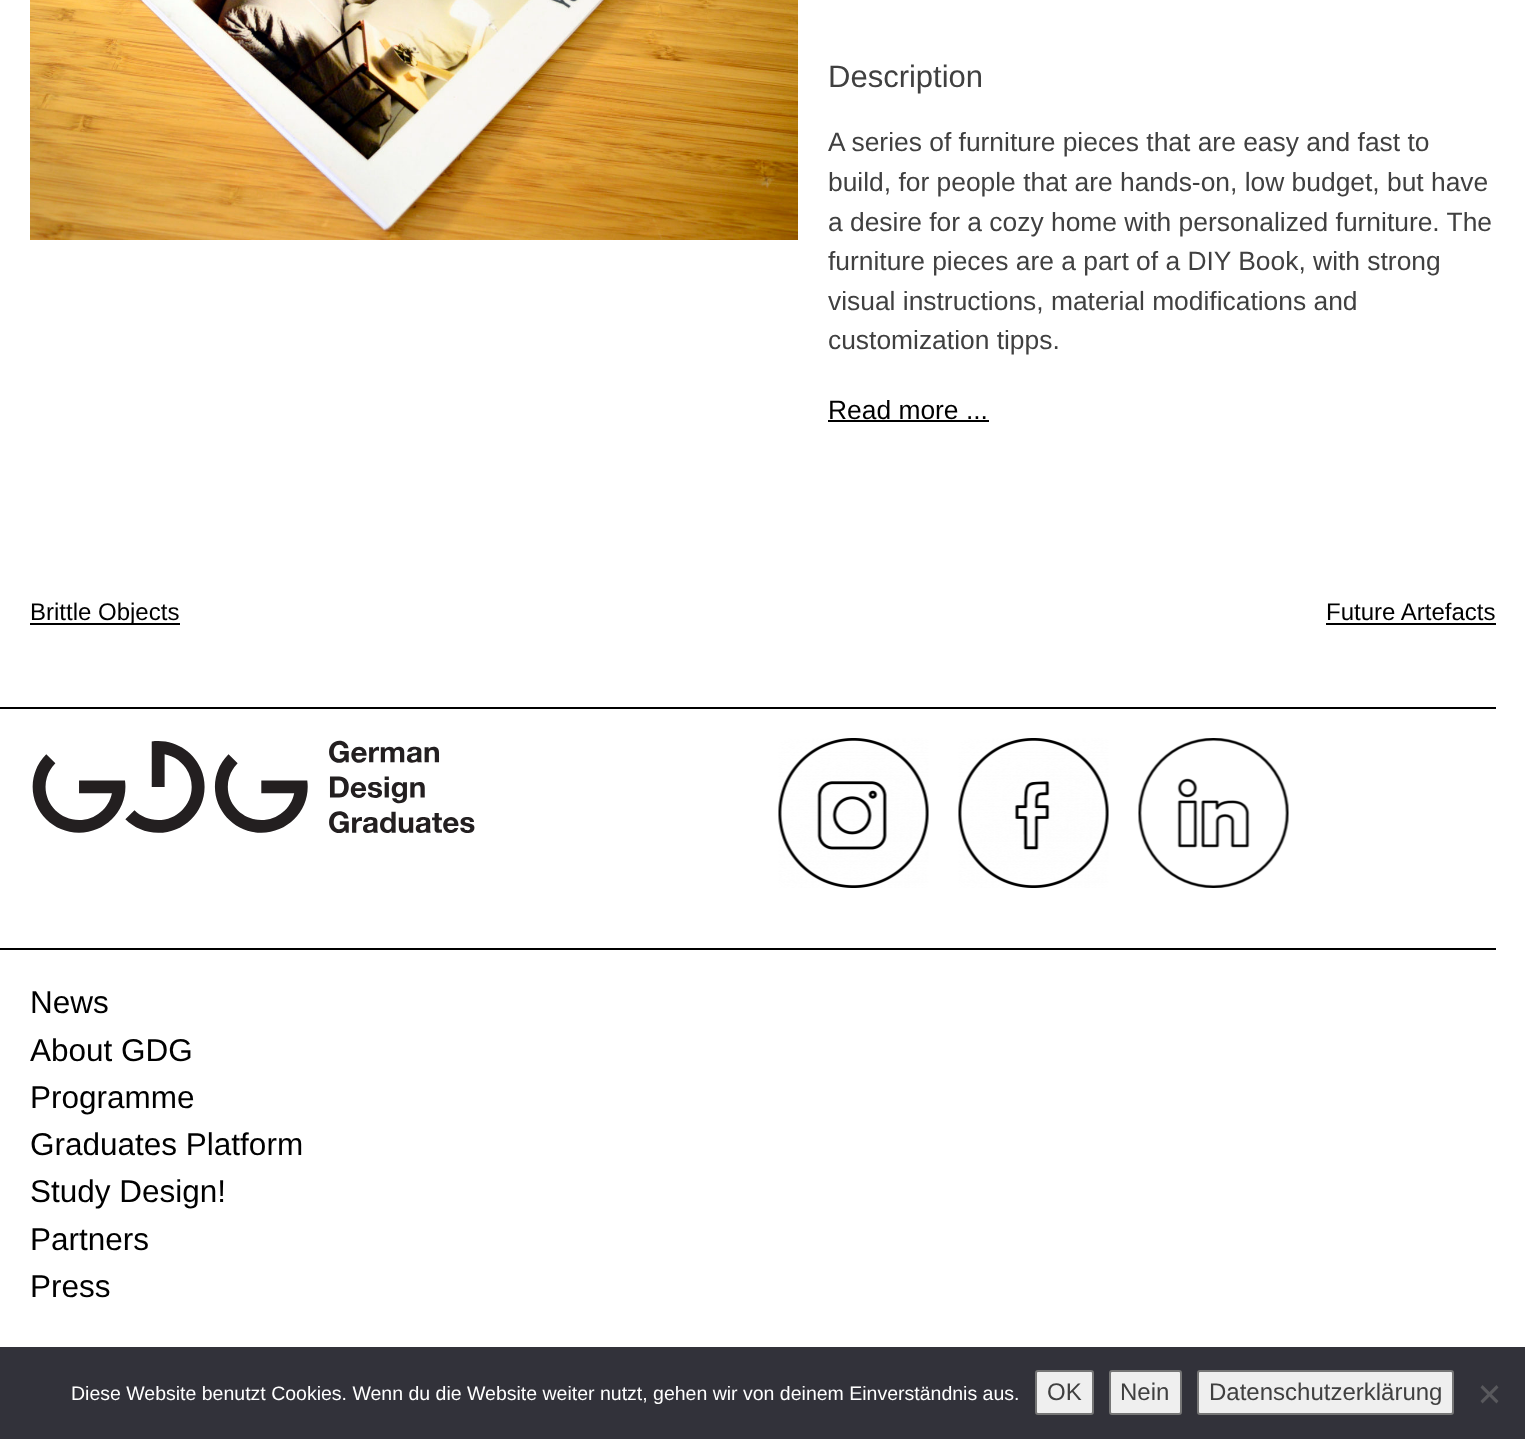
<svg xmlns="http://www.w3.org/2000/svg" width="1525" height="1439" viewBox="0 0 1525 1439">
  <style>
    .t1 { font: 31px Liberation Sans; fill: #404040; }
    .t2 { font: 26.4px Liberation Sans; fill: #404040; }
    .t3 { font: 26.4px Liberation Sans; fill: #000; }
    .t4 { font: 24px Liberation Sans; fill: #000; }
    .t5 { font: 31.5px Liberation Sans; fill: #000; }
    .t6 { font: 19.5px Liberation Sans; fill: #fff; }
    .t7 { font: 24px Liberation Sans; fill: #404040; }
  </style>
  <rect width="100%" height="100%" fill="#fff"/>
  <image x="30" y="0" width="768" height="240" href="images/1.png"/>
  <text x="828" y="87" class="t1">Description</text>
  <text x="828" y="151" class="t2">A series of furniture pieces that are easy and fast to</text>
  <text x="828" y="191" class="t2">build, for people that are hands-on, low budget, but have</text>
  <text x="828" y="231" class="t2">a desire for a cozy home with personalized furniture. The</text>
  <text x="828" y="270" class="t2">furniture pieces are a part of a DIY Book, with strong</text>
  <text x="828" y="310" class="t2">visual instructions, material modifications and</text>
  <text x="828" y="349" class="t2">customization tipps.</text>
  <text x="828" y="419" class="t3">Read more ...</text>
  <rect x="828" y="420" width="161" height="2" fill="#000"/>
  <rect x="30" y="623" width="150" height="2" fill="#000"/>
  <text x="30" y="620" class="t4">Brittle Objects</text>
  <text x="1326" y="620" class="t4">Future Artefacts</text>
  <rect x="1326" y="623" width="170" height="2" fill="#000"/>
  <rect x="0" y="707" width="1496" height="2" fill="#000"/>
  <image x="32" y="740" width="443" height="93" href="images/2.png"/>
  <image x="778" y="738" width="151" height="150" href="images/3.png"/>
  <image x="958" y="738" width="151" height="150" href="images/4.png"/>
  <image x="1138" y="738" width="151" height="150" href="images/5.png"/>
  <rect x="0" y="948" width="1496" height="2" fill="#000"/>
  <text x="30" y="1013" class="t5">News</text>
  <text x="30" y="1061" class="t5">About GDG</text>
  <text x="30" y="1108" class="t5">Programme</text>
  <text x="30" y="1155" class="t5">Graduates Platform</text>
  <text x="30" y="1202" class="t5">Study Design!</text>
  <text x="30" y="1250" class="t5">Partners</text>
  <text x="30" y="1297" class="t5">Press</text>
  <rect x="0" y="1347" width="1525" height="92" fill="#32323a"/>
  <text x="71" y="1400" class="t6">Diese Website benutzt Cookies. Wenn du die Website weiter nutzt, gehen wir von deinem Einverständnis aus.</text>
  <rect x="1036" y="1371" width="57" height="43" rx="2" fill="#efefef" stroke="#767676" stroke-width="2"/>
  <text x="1047" y="1400" class="t7">OK</text>
  <rect x="1110" y="1371" width="71" height="43" rx="2" fill="#efefef" stroke="#767676" stroke-width="2"/>
  <text x="1120" y="1400" class="t7">Nein</text>
  <rect x="1198" y="1371" width="255" height="43" rx="2" fill="#efefef" stroke="#767676" stroke-width="2"/>
  <text x="1209" y="1400" class="t7">Datenschutzerklärung</text>
  <path d="M1496.5 1385L1498.5 1387.5L1482.5 1403.5L1480.5 1401Z" fill="#59595d"/>
  <path d="M1480.5 1387.5L1482.5 1385L1498.5 1401L1496.5 1403.5Z" fill="#59595d"/>
</svg>
